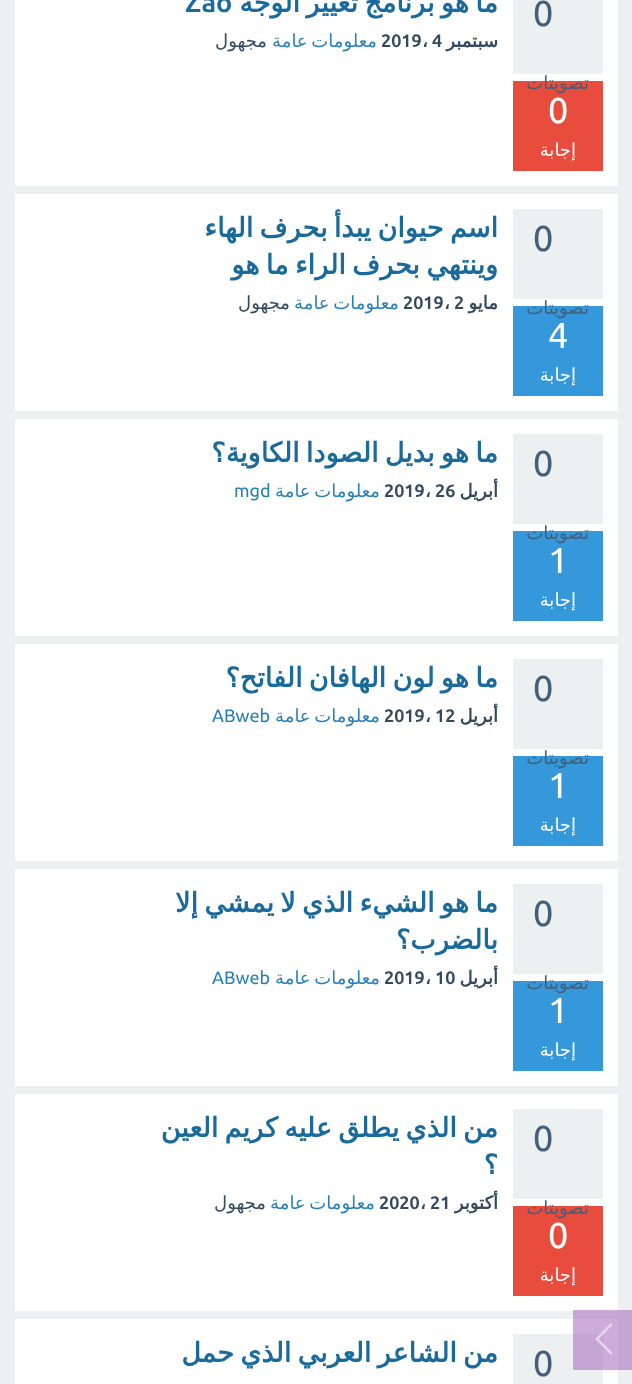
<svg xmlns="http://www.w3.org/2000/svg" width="632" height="1384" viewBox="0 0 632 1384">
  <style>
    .t1 { font: 36px Ubuntu; fill: #445f7a; }
    .t2 { font: 18px DejaVu Sans; direction: rtl; fill: #445f7a; }
    .t3 { font: 36px Ubuntu; fill: #fff; }
    .t4 { font: 18px DejaVu Sans; direction: rtl; fill: #fff; }
    .t5 { font: bold 27px DejaVu Sans; direction: rtl; fill: #1a6a9b; }
    .t6 { font: bold 27px Ubuntu; fill: #1a6a9b; }
    .t7 { font: bold 18px DejaVu Sans; direction: rtl; fill: #34495e; }
    .t8 { font: bold 18px Ubuntu; fill: #34495e; }
    .t9 { font: bold 18px DejaVu Sans; fill: #34495e; }
    .t10 { font: 18px DejaVu Sans; direction: rtl; fill: #2980b9; }
    .t11 { font: 18px DejaVu Sans; direction: rtl; fill: #34495e; }
    .t12 { font: 18px Ubuntu; fill: #2980b9; }
  </style>
  <rect width="100%" height="100%" fill="#ecf0f1"/>
  <rect x="573" y="1310" width="59" height="60" fill="#c4a5d4"/>
  <rect x="15" y="1319" width="603" height="65" fill="#fff"/>
  <rect x="573" y="1319" width="45" height="51" fill="#cdacdb"/>
  <rect x="513" y="1334" width="90" height="50" fill="#ecf0f1"/>
  <rect x="573" y="1334" width="30" height="36" fill="#c4a5d4"/>
  <image x="595" y="1323" width="18" height="32" href="images/1.png"/>
  <rect x="15" y="0" width="603" height="186" fill="#fff"/>
  <rect x="513" y="0" width="90" height="74" fill="#ecf0f1"/>
  <text x="533" y="26" class="t1">0</text>
  <rect x="513" y="81" width="90" height="90" fill="#e74c3c"/>
  <text x="589" y="89" class="t2">تصويتات</text>
  <text x="548" y="123" class="t3">0</text>
  <text x="576" y="156" class="t4">إجابة</text>
  <text x="498" y="12" word-spacing="-2.25" class="t5">ما هو برنامج تغيير الوجه</text>
  <text x="185" y="12" class="t6">Zao</text>
  <text x="498" y="47" class="t7">سبتمبر</text>
  <text x="432" y="47" class="t8">4</text>
  <text x="422" y="47" class="t9">،</text>
  <text x="381" y="47" class="t8">2019</text>
  <text x="377" y="47" word-spacing="-2" class="t10">معلومات عامة</text>
  <text x="267" y="47" class="t11">مجهول</text>
  <rect x="15" y="194" width="603" height="217" fill="#fff"/>
  <rect x="513" y="209" width="90" height="90" fill="#ecf0f1"/>
  <text x="533" y="251" class="t1">0</text>
  <rect x="513" y="306" width="90" height="90" fill="#3498db"/>
  <text x="589" y="314" class="t2">تصويتات</text>
  <text x="548" y="348" class="t3">4</text>
  <text x="576" y="381" class="t4">إجابة</text>
  <text x="498" y="237" word-spacing="-2.25" class="t5">اسم حيوان يبدأ بحرف الهاء</text>
  <text x="498" y="274" word-spacing="-2.25" class="t5">وينتهي بحرف الراء ما هو</text>
  <text x="498" y="309" class="t7">مايو</text>
  <text x="454" y="309" class="t8">2</text>
  <text x="444" y="309" class="t9">،</text>
  <text x="403" y="309" class="t8">2019</text>
  <text x="399" y="309" word-spacing="-2" class="t10">معلومات عامة</text>
  <text x="290" y="309" class="t11">مجهول</text>
  <rect x="15" y="419" width="603" height="217" fill="#fff"/>
  <rect x="513" y="434" width="90" height="90" fill="#ecf0f1"/>
  <text x="533" y="476" class="t1">0</text>
  <rect x="513" y="531" width="90" height="90" fill="#3498db"/>
  <text x="589" y="539" class="t2">تصويتات</text>
  <text x="548" y="573" class="t3">1</text>
  <text x="576" y="606" class="t4">إجابة</text>
  <text x="498" y="462" word-spacing="-2.25" class="t5">ما هو بديل الصودا الكاوية؟</text>
  <text x="498" y="497" class="t7">أبريل</text>
  <text x="435" y="497" class="t8">26</text>
  <text x="425" y="497" class="t9">،</text>
  <text x="384" y="497" class="t8">2019</text>
  <text x="380" y="497" word-spacing="-2" class="t10">معلومات عامة</text>
  <text x="234" y="497" class="t12">mgd</text>
  <rect x="15" y="644" width="603" height="217" fill="#fff"/>
  <rect x="513" y="659" width="90" height="90" fill="#ecf0f1"/>
  <text x="533" y="701" class="t1">0</text>
  <rect x="513" y="756" width="90" height="90" fill="#3498db"/>
  <text x="589" y="764" class="t2">تصويتات</text>
  <text x="548" y="798" class="t3">1</text>
  <text x="576" y="831" class="t4">إجابة</text>
  <text x="498" y="687" word-spacing="-2.25" class="t5">ما هو لون الهافان الفاتح؟</text>
  <text x="498" y="722" class="t7">أبريل</text>
  <text x="435" y="722" class="t8">12</text>
  <text x="425" y="722" class="t9">،</text>
  <text x="384" y="722" class="t8">2019</text>
  <text x="380" y="722" word-spacing="-2" class="t10">معلومات عامة</text>
  <text x="212" y="722" class="t12">ABweb</text>
  <rect x="15" y="869" width="603" height="217" fill="#fff"/>
  <rect x="513" y="884" width="90" height="90" fill="#ecf0f1"/>
  <text x="533" y="926" class="t1">0</text>
  <rect x="513" y="981" width="90" height="90" fill="#3498db"/>
  <text x="589" y="989" class="t2">تصويتات</text>
  <text x="548" y="1023" class="t3">1</text>
  <text x="576" y="1056" class="t4">إجابة</text>
  <text x="498" y="912" word-spacing="-2.25" class="t5">ما هو الشيء الذي لا يمشي إلا</text>
  <text x="498" y="949" class="t5">بالضرب؟</text>
  <text x="498" y="984" class="t7">أبريل</text>
  <text x="435" y="984" class="t8">10</text>
  <text x="425" y="984" class="t9">،</text>
  <text x="384" y="984" class="t8">2019</text>
  <text x="380" y="984" word-spacing="-2" class="t10">معلومات عامة</text>
  <text x="212" y="984" class="t12">ABweb</text>
  <rect x="15" y="1094" width="603" height="217" fill="#fff"/>
  <rect x="573" y="1310" width="45" height="1" fill="#cdacdb"/>
  <rect x="513" y="1109" width="90" height="90" fill="#ecf0f1"/>
  <text x="533" y="1151" class="t1">0</text>
  <rect x="513" y="1206" width="90" height="90" fill="#e74c3c"/>
  <text x="589" y="1214" class="t2">تصويتات</text>
  <text x="548" y="1248" class="t3">0</text>
  <text x="576" y="1281" class="t4">إجابة</text>
  <text x="498" y="1137" word-spacing="-2.25" class="t5">من الذي يطلق عليه كريم العين</text>
  <text x="498" y="1174" class="t5">؟</text>
  <text x="498" y="1209" class="t7">أكتوبر</text>
  <text x="430" y="1209" class="t8">21</text>
  <text x="420" y="1209" class="t9">،</text>
  <text x="379" y="1209" class="t8">2020</text>
  <text x="375" y="1209" word-spacing="-2" class="t10">معلومات عامة</text>
  <text x="266" y="1209" class="t11">مجهول</text>
  <text x="533" y="1376" class="t1">0</text>
  <text x="498" y="1362" word-spacing="-2.25" class="t5">من الشاعر العربي الذي حمل</text>
</svg>
